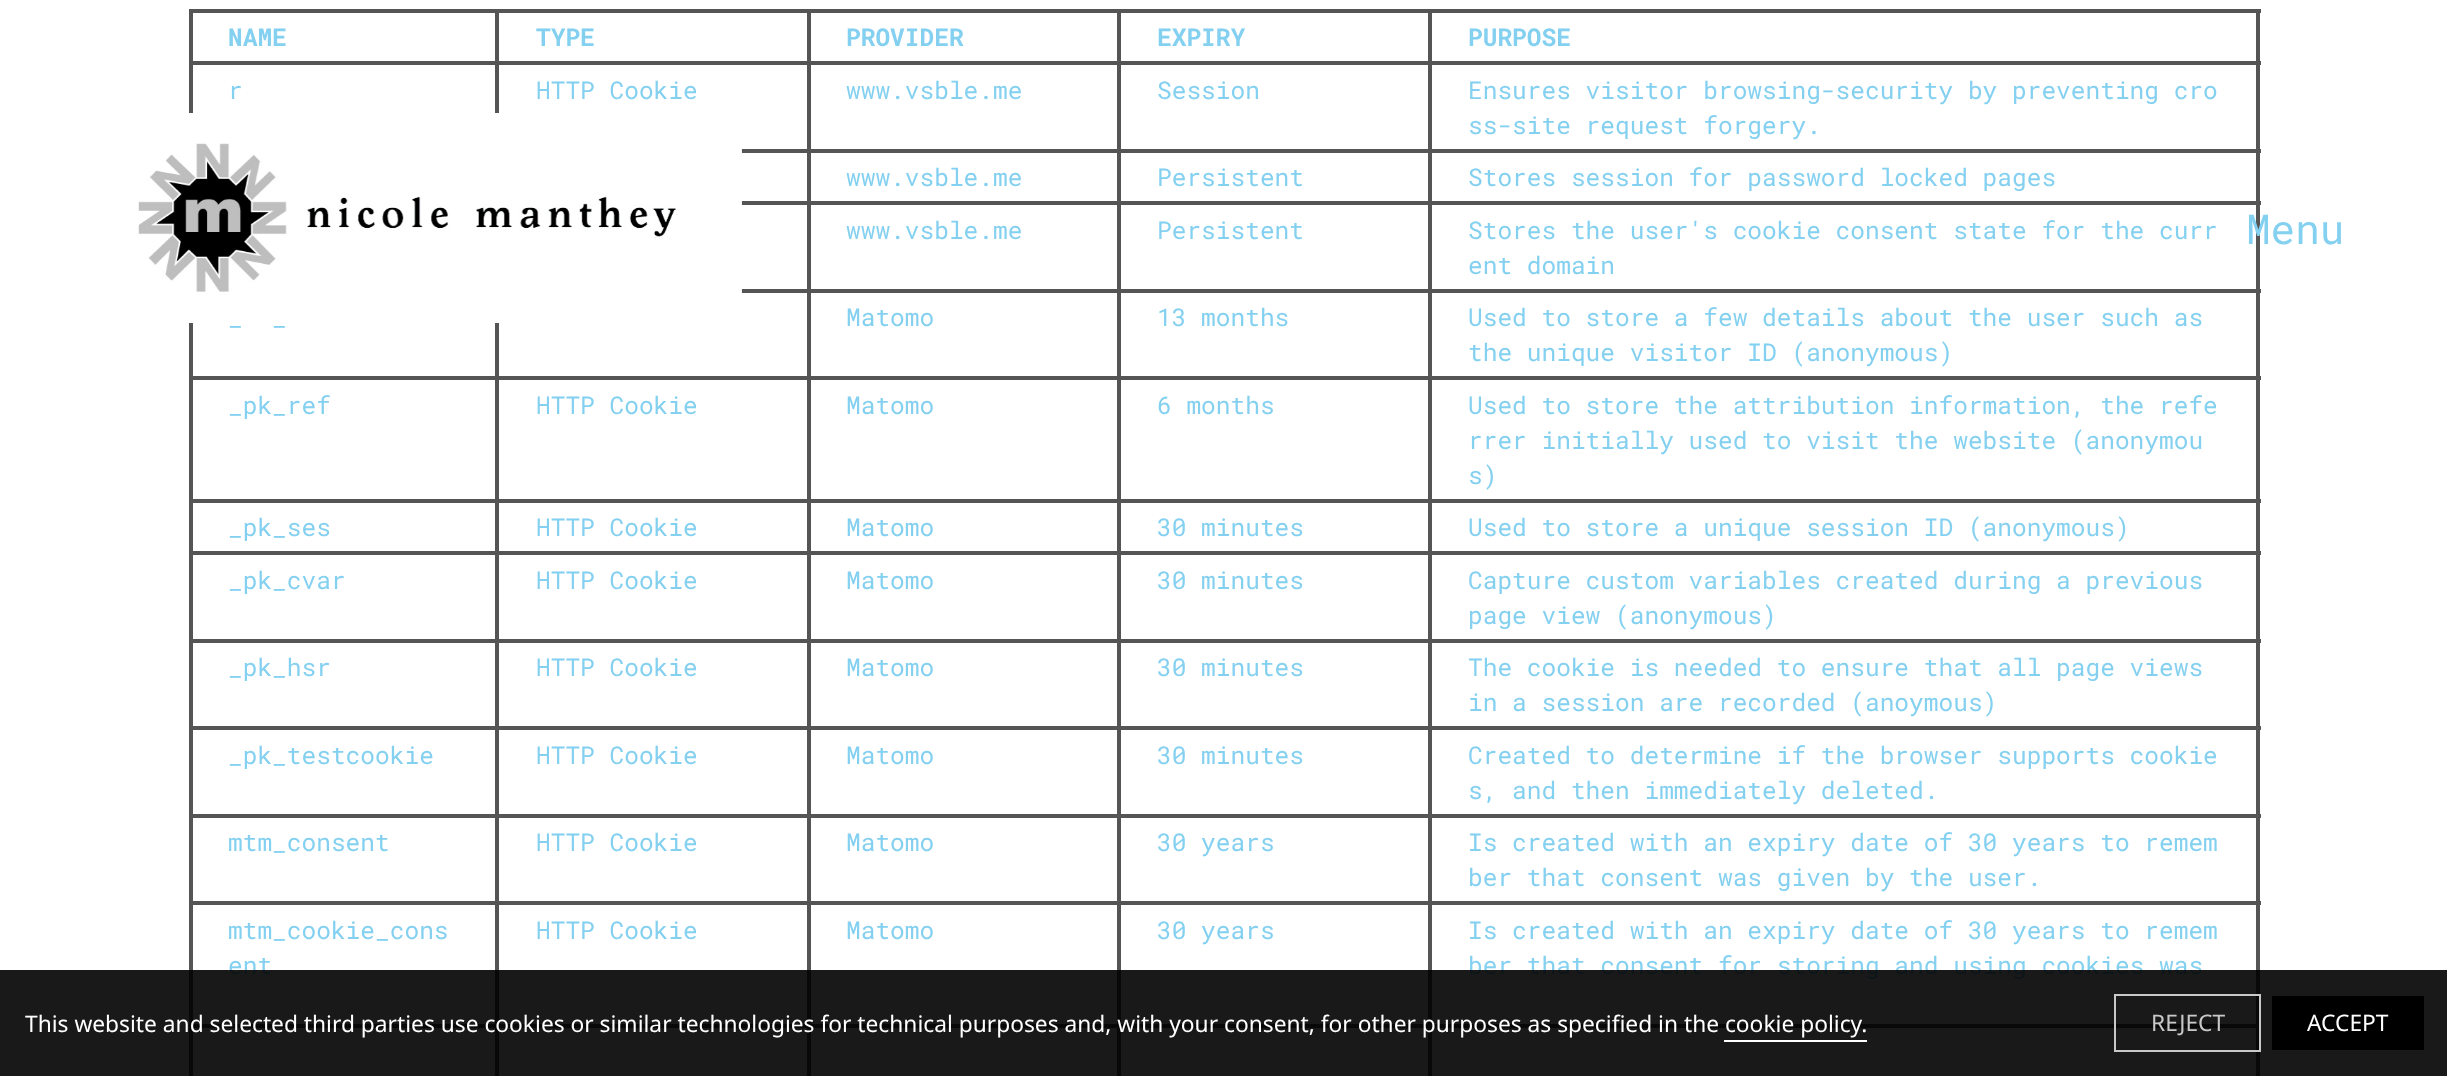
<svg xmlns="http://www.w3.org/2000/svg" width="2447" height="1076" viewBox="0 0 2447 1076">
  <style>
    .t1 { font: bold 24.5px Roboto Mono; fill: #84d0f0; }
    .t2 { font: 24.5px Roboto Mono; fill: #84d0f0; }
    .t3 { font: 41px Roboto Mono; fill: #84d0f0; }
    .t4 { font: 22.75px Noto Sans; fill: #fff; }
    .t5 { font: 22.75px Noto Sans; fill: #c8c8c8; }
  </style>
  <rect width="100%" height="100%" fill="#fff"/>
  <rect x="189" y="9" width="2072" height="4" fill="#555"/>
  <rect x="495" y="12" width="4" height="49" fill="#555"/>
  <rect x="189" y="12" width="4" height="49" fill="#555"/>
  <text x="228" y="46" class="t1">NAME</text>
  <rect x="807" y="12" width="4" height="49" fill="#555"/>
  <text x="536" y="46" class="t1">TYPE</text>
  <rect x="1117" y="12" width="4" height="49" fill="#555"/>
  <text x="846" y="46" class="t1">PROVIDER</text>
  <rect x="1428" y="12" width="4" height="49" fill="#555"/>
  <text x="1157" y="46" class="t1">EXPIRY</text>
  <rect x="2256" y="12" width="4" height="49" fill="#555"/>
  <text x="1468" y="46" class="t1">PURPOSE</text>
  <rect x="189" y="61" width="2072" height="4" fill="#555"/>
  <rect x="495" y="65" width="4" height="48" fill="#555"/>
  <rect x="189" y="65" width="4" height="48" fill="#555"/>
  <text x="228" y="99" class="t2">r</text>
  <rect x="807" y="65" width="4" height="84" fill="#555"/>
  <text x="536" y="99" class="t2">HTTP Cookie</text>
  <rect x="1117" y="65" width="4" height="84" fill="#555"/>
  <text x="846" y="99" class="t2">www.vsble.me</text>
  <rect x="1428" y="65" width="4" height="84" fill="#555"/>
  <text x="1157" y="99" class="t2">Session</text>
  <rect x="2256" y="65" width="4" height="84" fill="#555"/>
  <text x="1468" y="99" class="t2">Ensures visitor browsing-security by preventing cro</text>
  <text x="1468" y="134" class="t2">ss-site request forgery.</text>
  <rect x="741" y="149" width="1520" height="4" fill="#555"/>
  <rect x="807" y="152" width="4" height="49" fill="#555"/>
  <rect x="1117" y="152" width="4" height="49" fill="#555"/>
  <text x="846" y="186" class="t2">www.vsble.me</text>
  <rect x="1428" y="152" width="4" height="49" fill="#555"/>
  <text x="1157" y="186" class="t2">Persistent</text>
  <rect x="2256" y="152" width="4" height="49" fill="#555"/>
  <text x="1468" y="186" class="t2">Stores session for password locked pages</text>
  <rect x="741" y="201" width="1520" height="4" fill="#555"/>
  <rect x="807" y="205" width="4" height="84" fill="#555"/>
  <rect x="1117" y="205" width="4" height="84" fill="#555"/>
  <text x="846" y="239" class="t2">www.vsble.me</text>
  <rect x="1428" y="205" width="4" height="84" fill="#555"/>
  <text x="1157" y="239" class="t2">Persistent</text>
  <rect x="2256" y="205" width="4" height="84" fill="#555"/>
  <text x="1468" y="239" class="t2">Stores the user's cookie consent state for the curr</text>
  <text x="1468" y="274" class="t2">ent domain</text>
  <rect x="741" y="289" width="1520" height="4" fill="#555"/>
  <rect x="495" y="323" width="4" height="53" fill="#555"/>
  <rect x="189" y="323" width="4" height="53" fill="#555"/>
  <text x="228" y="326" class="t2">_</text>
  <text x="272" y="326" class="t2">_</text>
  <rect x="807" y="292" width="4" height="84" fill="#555"/>
  <rect x="1117" y="292" width="4" height="84" fill="#555"/>
  <text x="846" y="326" class="t2">Matomo</text>
  <rect x="1428" y="292" width="4" height="84" fill="#555"/>
  <text x="1157" y="326" class="t2">13 months</text>
  <rect x="2256" y="292" width="4" height="84" fill="#555"/>
  <text x="1468" y="326" class="t2">Used to store a few details about the user such as</text>
  <text x="1468" y="361" class="t2">the unique visitor ID (anonymous)</text>
  <rect x="189" y="376" width="2072" height="4" fill="#555"/>
  <rect x="495" y="380" width="4" height="119" fill="#555"/>
  <rect x="189" y="380" width="4" height="119" fill="#555"/>
  <text x="228" y="414" class="t2">_pk_ref</text>
  <rect x="807" y="380" width="4" height="119" fill="#555"/>
  <text x="536" y="414" class="t2">HTTP Cookie</text>
  <rect x="1117" y="380" width="4" height="119" fill="#555"/>
  <text x="846" y="414" class="t2">Matomo</text>
  <rect x="1428" y="380" width="4" height="119" fill="#555"/>
  <text x="1157" y="414" class="t2">6 months</text>
  <rect x="2256" y="380" width="4" height="119" fill="#555"/>
  <text x="1468" y="414" class="t2">Used to store the attribution information, the refe</text>
  <text x="1468" y="449" class="t2">rrer initially used to visit the website (anonymou</text>
  <text x="1468" y="484" class="t2">s)</text>
  <rect x="189" y="499" width="2072" height="4" fill="#555"/>
  <rect x="495" y="502" width="4" height="49" fill="#555"/>
  <rect x="189" y="502" width="4" height="49" fill="#555"/>
  <text x="228" y="536" class="t2">_pk_ses</text>
  <rect x="807" y="502" width="4" height="49" fill="#555"/>
  <text x="536" y="536" class="t2">HTTP Cookie</text>
  <rect x="1117" y="502" width="4" height="49" fill="#555"/>
  <text x="846" y="536" class="t2">Matomo</text>
  <rect x="1428" y="502" width="4" height="49" fill="#555"/>
  <text x="1157" y="536" class="t2">30 minutes</text>
  <rect x="2256" y="502" width="4" height="49" fill="#555"/>
  <text x="1468" y="536" class="t2">Used to store a unique session ID (anonymous)</text>
  <rect x="189" y="551" width="2072" height="4" fill="#555"/>
  <rect x="495" y="555" width="4" height="84" fill="#555"/>
  <rect x="189" y="555" width="4" height="84" fill="#555"/>
  <text x="228" y="589" class="t2">_pk_cvar</text>
  <rect x="807" y="555" width="4" height="84" fill="#555"/>
  <text x="536" y="589" class="t2">HTTP Cookie</text>
  <rect x="1117" y="555" width="4" height="84" fill="#555"/>
  <text x="846" y="589" class="t2">Matomo</text>
  <rect x="1428" y="555" width="4" height="84" fill="#555"/>
  <text x="1157" y="589" class="t2">30 minutes</text>
  <rect x="2256" y="555" width="4" height="84" fill="#555"/>
  <text x="1468" y="589" class="t2">Capture custom variables created during a previous</text>
  <text x="1468" y="624" class="t2">page view (anonymous)</text>
  <rect x="189" y="639" width="2072" height="4" fill="#555"/>
  <rect x="495" y="642" width="4" height="84" fill="#555"/>
  <rect x="189" y="642" width="4" height="84" fill="#555"/>
  <text x="228" y="676" class="t2">_pk_hsr</text>
  <rect x="807" y="642" width="4" height="84" fill="#555"/>
  <text x="536" y="676" class="t2">HTTP Cookie</text>
  <rect x="1117" y="642" width="4" height="84" fill="#555"/>
  <text x="846" y="676" class="t2">Matomo</text>
  <rect x="1428" y="642" width="4" height="84" fill="#555"/>
  <text x="1157" y="676" class="t2">30 minutes</text>
  <rect x="2256" y="642" width="4" height="84" fill="#555"/>
  <text x="1468" y="676" class="t2">The cookie is needed to ensure that all page views</text>
  <text x="1468" y="711" class="t2">in a session are recorded (anoymous)</text>
  <rect x="189" y="726" width="2072" height="4" fill="#555"/>
  <rect x="495" y="730" width="4" height="84" fill="#555"/>
  <rect x="189" y="730" width="4" height="84" fill="#555"/>
  <text x="228" y="764" class="t2">_pk_testcookie</text>
  <rect x="807" y="730" width="4" height="84" fill="#555"/>
  <text x="536" y="764" class="t2">HTTP Cookie</text>
  <rect x="1117" y="730" width="4" height="84" fill="#555"/>
  <text x="846" y="764" class="t2">Matomo</text>
  <rect x="1428" y="730" width="4" height="84" fill="#555"/>
  <text x="1157" y="764" class="t2">30 minutes</text>
  <rect x="2256" y="730" width="4" height="84" fill="#555"/>
  <text x="1468" y="764" class="t2">Created to determine if the browser supports cookie</text>
  <text x="1468" y="799" class="t2">s, and then immediately deleted.</text>
  <rect x="189" y="814" width="2072" height="4" fill="#555"/>
  <rect x="495" y="817" width="4" height="84" fill="#555"/>
  <rect x="189" y="817" width="4" height="84" fill="#555"/>
  <text x="228" y="851" class="t2">mtm_consent</text>
  <rect x="807" y="817" width="4" height="84" fill="#555"/>
  <text x="536" y="851" class="t2">HTTP Cookie</text>
  <rect x="1117" y="817" width="4" height="84" fill="#555"/>
  <text x="846" y="851" class="t2">Matomo</text>
  <rect x="1428" y="817" width="4" height="84" fill="#555"/>
  <text x="1157" y="851" class="t2">30 years</text>
  <rect x="2256" y="817" width="4" height="84" fill="#555"/>
  <text x="1468" y="851" class="t2">Is created with an expiry date of 30 years to remem</text>
  <text x="1468" y="886" class="t2">ber that consent was given by the user.</text>
  <rect x="189" y="901" width="2072" height="4" fill="#555"/>
  <rect x="495" y="905" width="4" height="119" fill="#555"/>
  <rect x="189" y="905" width="4" height="119" fill="#555"/>
  <text x="228" y="939" class="t2">mtm_cookie_cons</text>
  <text x="228" y="974" class="t2">ent</text>
  <rect x="807" y="905" width="4" height="119" fill="#555"/>
  <text x="536" y="939" class="t2">HTTP Cookie</text>
  <rect x="1117" y="905" width="4" height="119" fill="#555"/>
  <text x="846" y="939" class="t2">Matomo</text>
  <rect x="1428" y="905" width="4" height="119" fill="#555"/>
  <text x="1157" y="939" class="t2">30 years</text>
  <rect x="2256" y="905" width="4" height="119" fill="#555"/>
  <text x="1468" y="939" class="t2">Is created with an expiry date of 30 years to remem</text>
  <text x="1468" y="974" class="t2">ber that consent for storing and using cookies was</text>
  <rect x="189" y="1024" width="2072" height="4" fill="#555"/>
  <rect x="495" y="1027" width="4" height="49" fill="#555"/>
  <rect x="189" y="1027" width="4" height="49" fill="#555"/>
  <rect x="807" y="1027" width="4" height="49" fill="#555"/>
  <rect x="1117" y="1027" width="4" height="49" fill="#555"/>
  <rect x="1428" y="1027" width="4" height="49" fill="#555"/>
  <rect x="2256" y="1027" width="4" height="49" fill="#555"/>
  <image x="138" y="113" width="604" height="210" href="images/1.png"/>
  <text x="2246" y="244" class="t3">Menu</text>
  <rect x="0" y="970" width="2447" height="106" fill="#000000e6"/>
  <text x="25" y="1032" class="t4">This website and selected third parties use cookies or similar technologies for technical purposes and, with your consent, for other purposes as specified in the cookie policy.</text>
  <rect x="1724" y="1040" width="143" height="2" fill="#fff"/>
  <rect x="2115" y="995" width="145" height="56" fill="none" stroke="#c8c8c8" stroke-width="2"/>
  <text x="2151" y="1031" class="t5">REJECT</text>
  <rect x="2272" y="996" width="152" height="54" fill="#000"/>
  <text x="2307" y="1031" class="t4">ACCEPT</text>
</svg>
